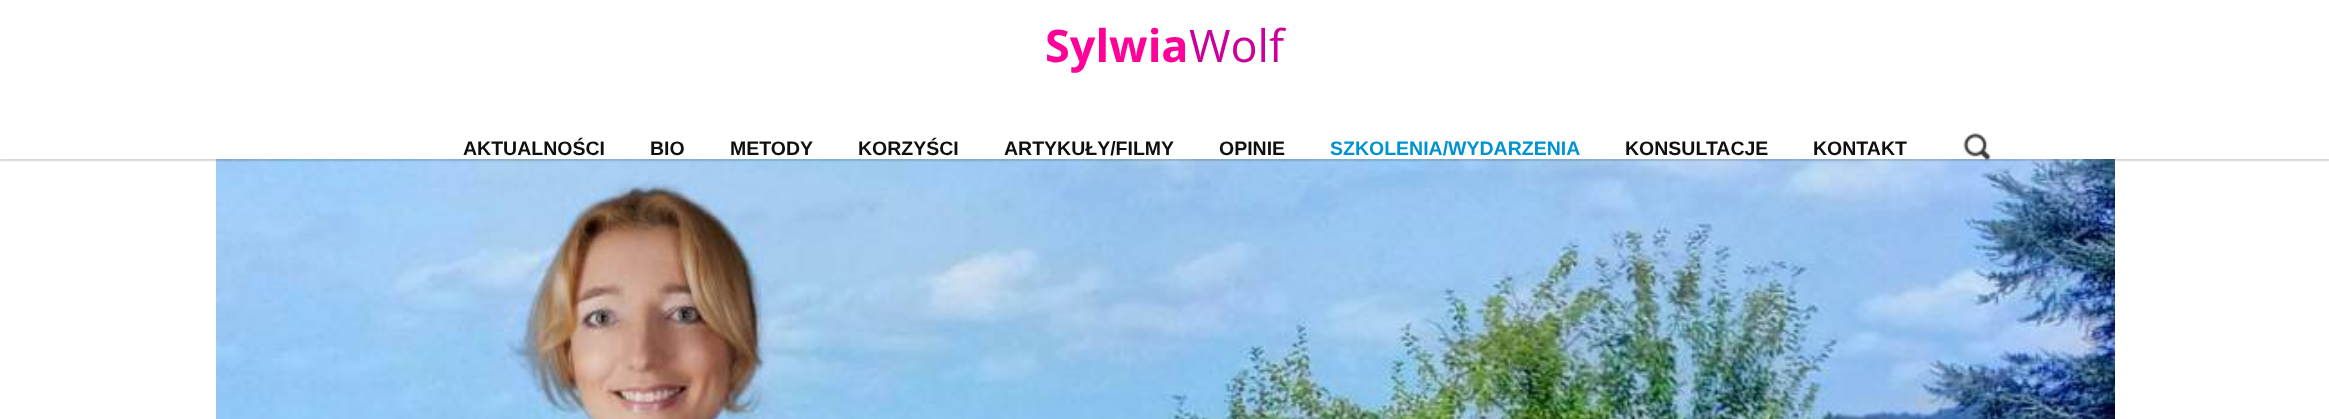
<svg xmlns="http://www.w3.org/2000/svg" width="2329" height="419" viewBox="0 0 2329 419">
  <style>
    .t1 { font: bold 45px Open Sans; fill: #f09; }
    .t2 { font: 45px Open Sans; fill: #c09; }
    .t3 { font: bold 19.5px Liberation Sans; fill: #0f0f0f; }
    .t4 { font: bold 19.5px Liberation Sans; fill: #0093cf; }
  </style>
  <defs>
    <clipPath id="clip1"><rect x="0" y="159" width="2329" height="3"/></clipPath>
  </defs>
  <rect width="100%" height="100%" fill="#fff"/>
  <text x="1045" y="62" class="t1">Sylwia</text>
  <text x="1189" y="62" class="t2">Wolf</text>
  <image x="216" y="159" width="1899" height="260" href="images/2.png"/>
  <path d="M0 159V161H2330V92V159Z" fill="#0000000f"/>
  <g clip-path="url(#clip1)">
    <rect x="0" y="92" width="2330" height="69" fill="#0000001a" filter="blur(1px)"/>
  </g>
  <text x="463" y="155" class="t3">AKTUALNOŚCI</text>
  <text x="650" y="155" class="t3">BIO</text>
  <text x="730" y="155" class="t3">METODY</text>
  <text x="858" y="155" class="t3">KORZYŚCI</text>
  <text x="1004" y="155" class="t3">ARTYKUŁY/FILMY</text>
  <text x="1219" y="155" class="t3">OPINIE</text>
  <text x="1330" y="155" class="t4">SZKOLENIA/WYDARZENIA</text>
  <text x="1625" y="155" class="t3">KONSULTACJE</text>
  <text x="1813" y="155" class="t3">KONTAKT</text>
  <image x="1963" y="133" width="28" height="28" href="images/1.png"/>
</svg>
